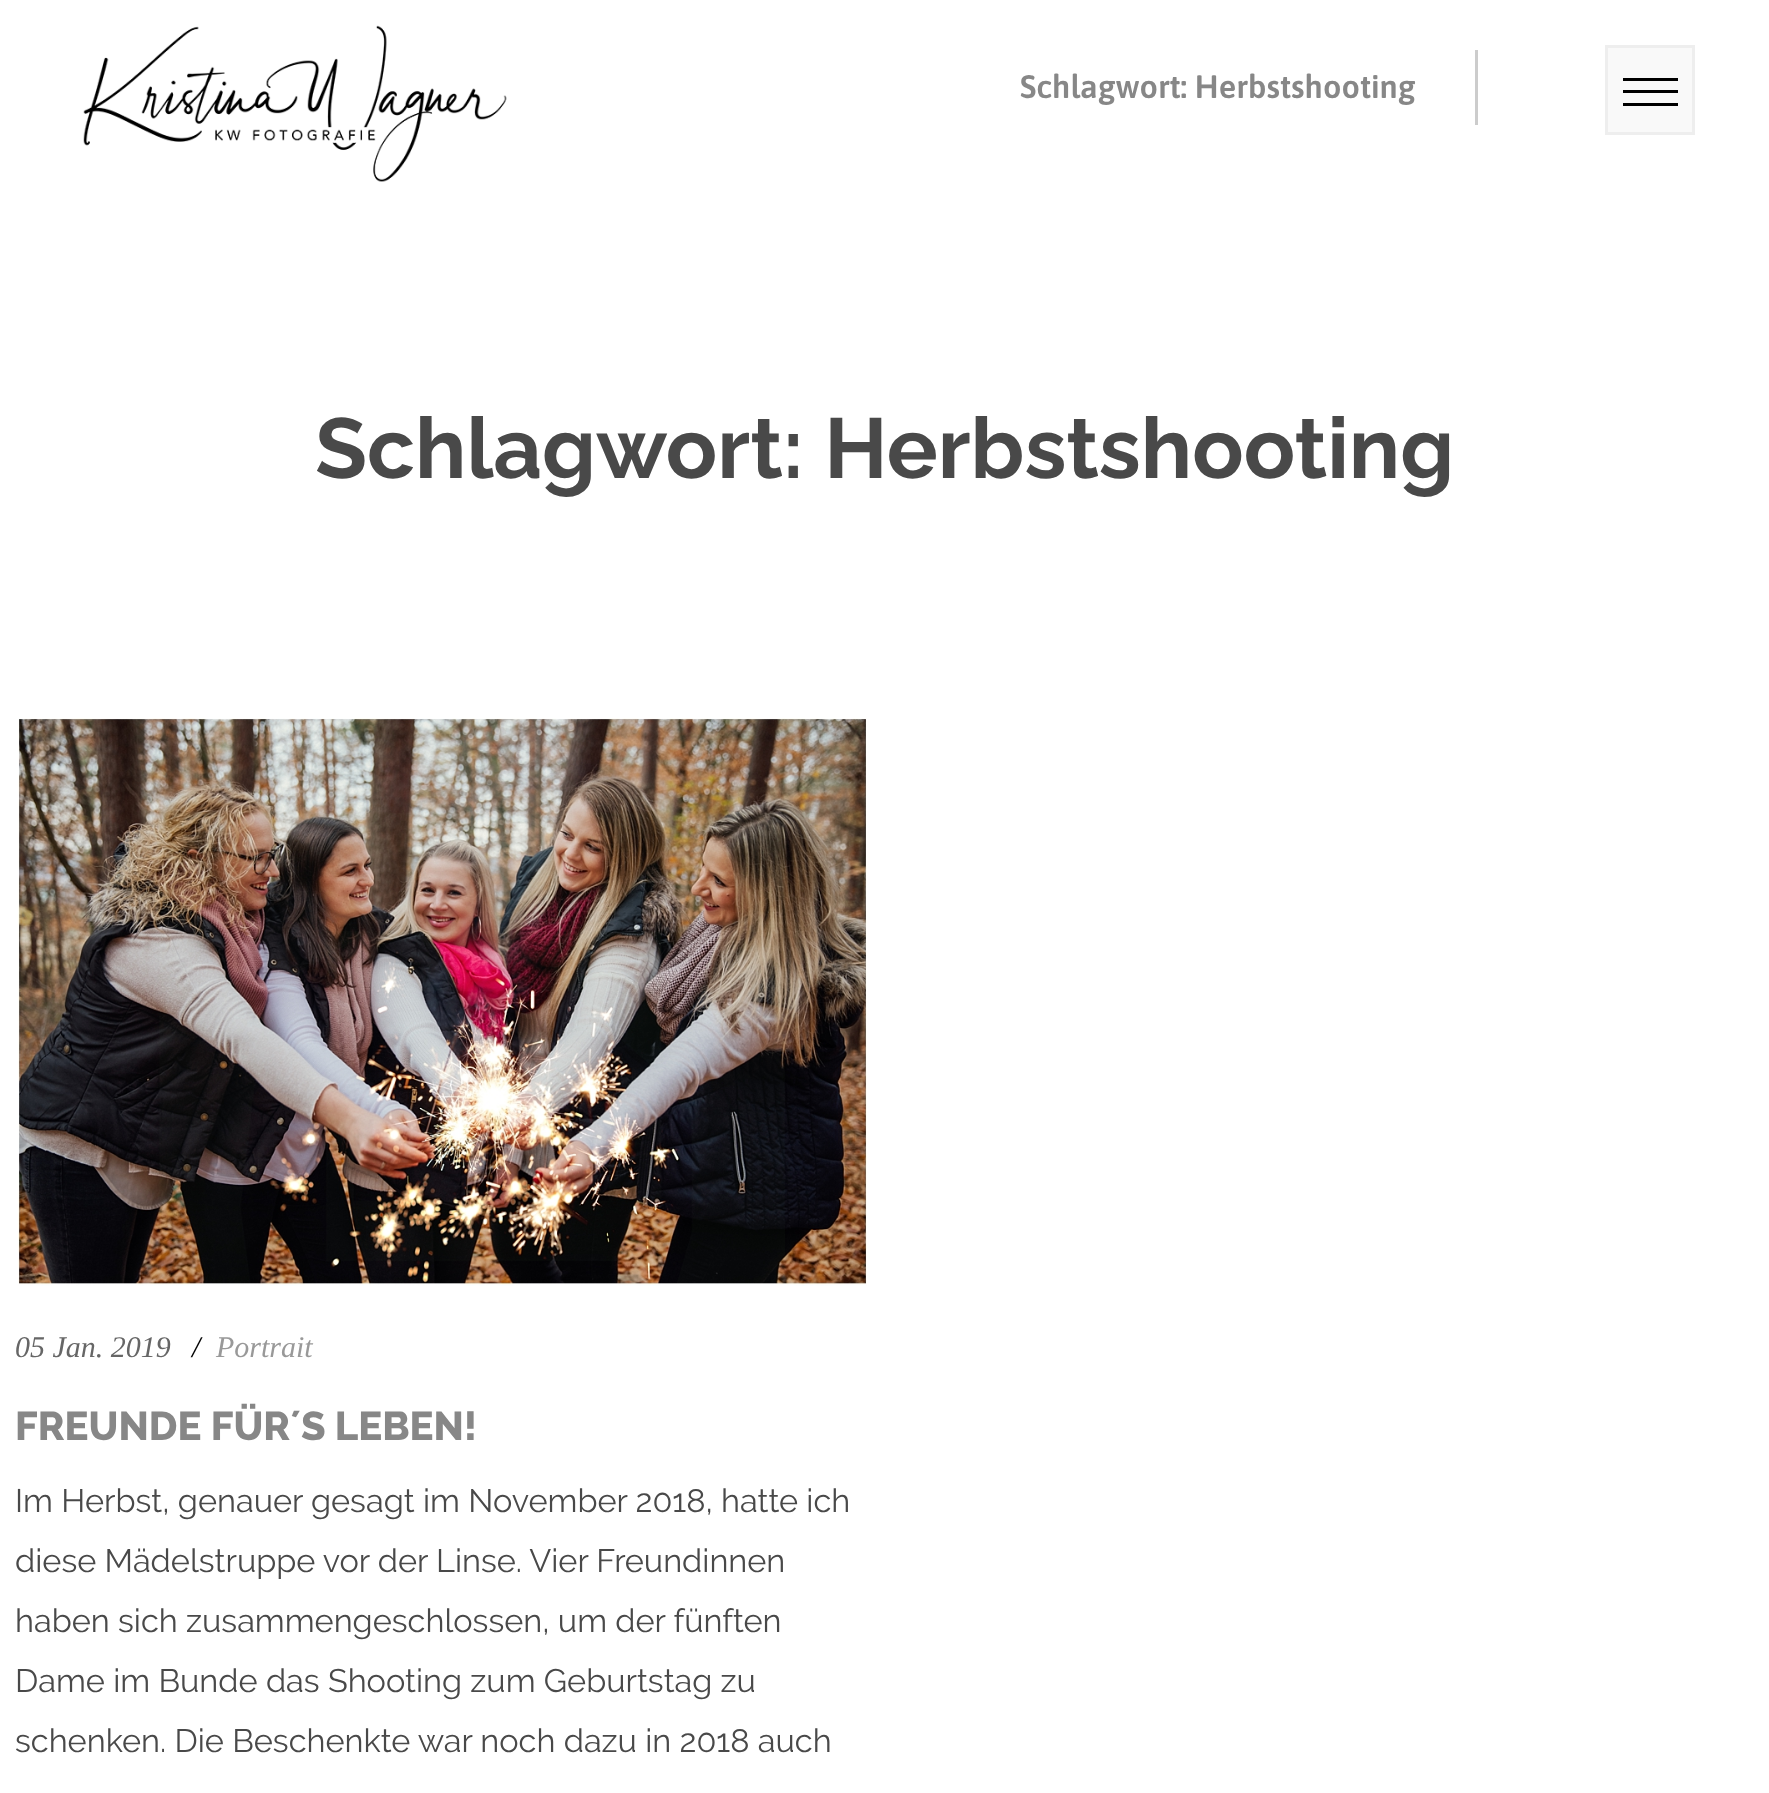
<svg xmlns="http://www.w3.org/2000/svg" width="1769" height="1793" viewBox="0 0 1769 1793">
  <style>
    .t1 { font: 600 32.5px Asap; fill: #878787; }
    .t2 { font: bold 85px Raleway; fill: #494949; }
    .t3 { font: italic 30px Liberation Serif; fill: #666; }
    .t4 { font: italic 30px Liberation Serif; fill: #000; }
    .t5 { font: italic 30px Liberation Serif; fill: #999; }
    .t6 { font: 800 40px Raleway; fill: #878787; }
    .t7 { font: 32.5px Raleway; fill: #494949; }
  </style>
  <rect width="100%" height="100%" fill="#fff"/>
  <image x="83" y="25" width="424" height="157" href="images/1.png"/>
  <text x="1020" y="98" class="t1">Schlagwort: Herbstshooting</text>
  <rect x="1475" y="50" width="3" height="75" fill="#ccc"/>
  <rect x="1606.5" y="46.5" width="87" height="87" fill="#f9f9f9" stroke="#eee" stroke-width="3"/>
  <rect x="1623" y="78" width="55" height="3" fill="#000"/>
  <rect x="1623" y="90" width="55" height="3" fill="#000"/>
  <rect x="1623" y="103" width="55" height="3" fill="#000"/>
  <text x="315" y="478" class="t2">Schlagwort: Herbstshooting</text>
  <image x="18" y="718" width="849" height="568" href="images/2.png"/>
  <text x="15" y="1357" class="t3">05 Jan. 2019</text>
  <text x="192" y="1357" class="t4">/</text>
  <text x="216" y="1357" class="t5">Portrait</text>
  <text x="15" y="1440" class="t6">FREUNDE FÜR´S LEBEN!</text>
  <text x="15" y="1512" class="t7">Im Herbst, genauer gesagt im November 2018, hatte ich</text>
  <text x="15" y="1572" class="t7">diese Mädelstruppe vor der Linse. Vier Freundinnen</text>
  <text x="15" y="1632" class="t7">haben sich zusammengeschlossen, um der fünften</text>
  <text x="15" y="1692" class="t7">Dame im Bunde das Shooting zum Geburtstag zu</text>
  <text x="15" y="1752" class="t7">schenken. Die Beschenkte war noch dazu in 2018 auch</text>
</svg>
